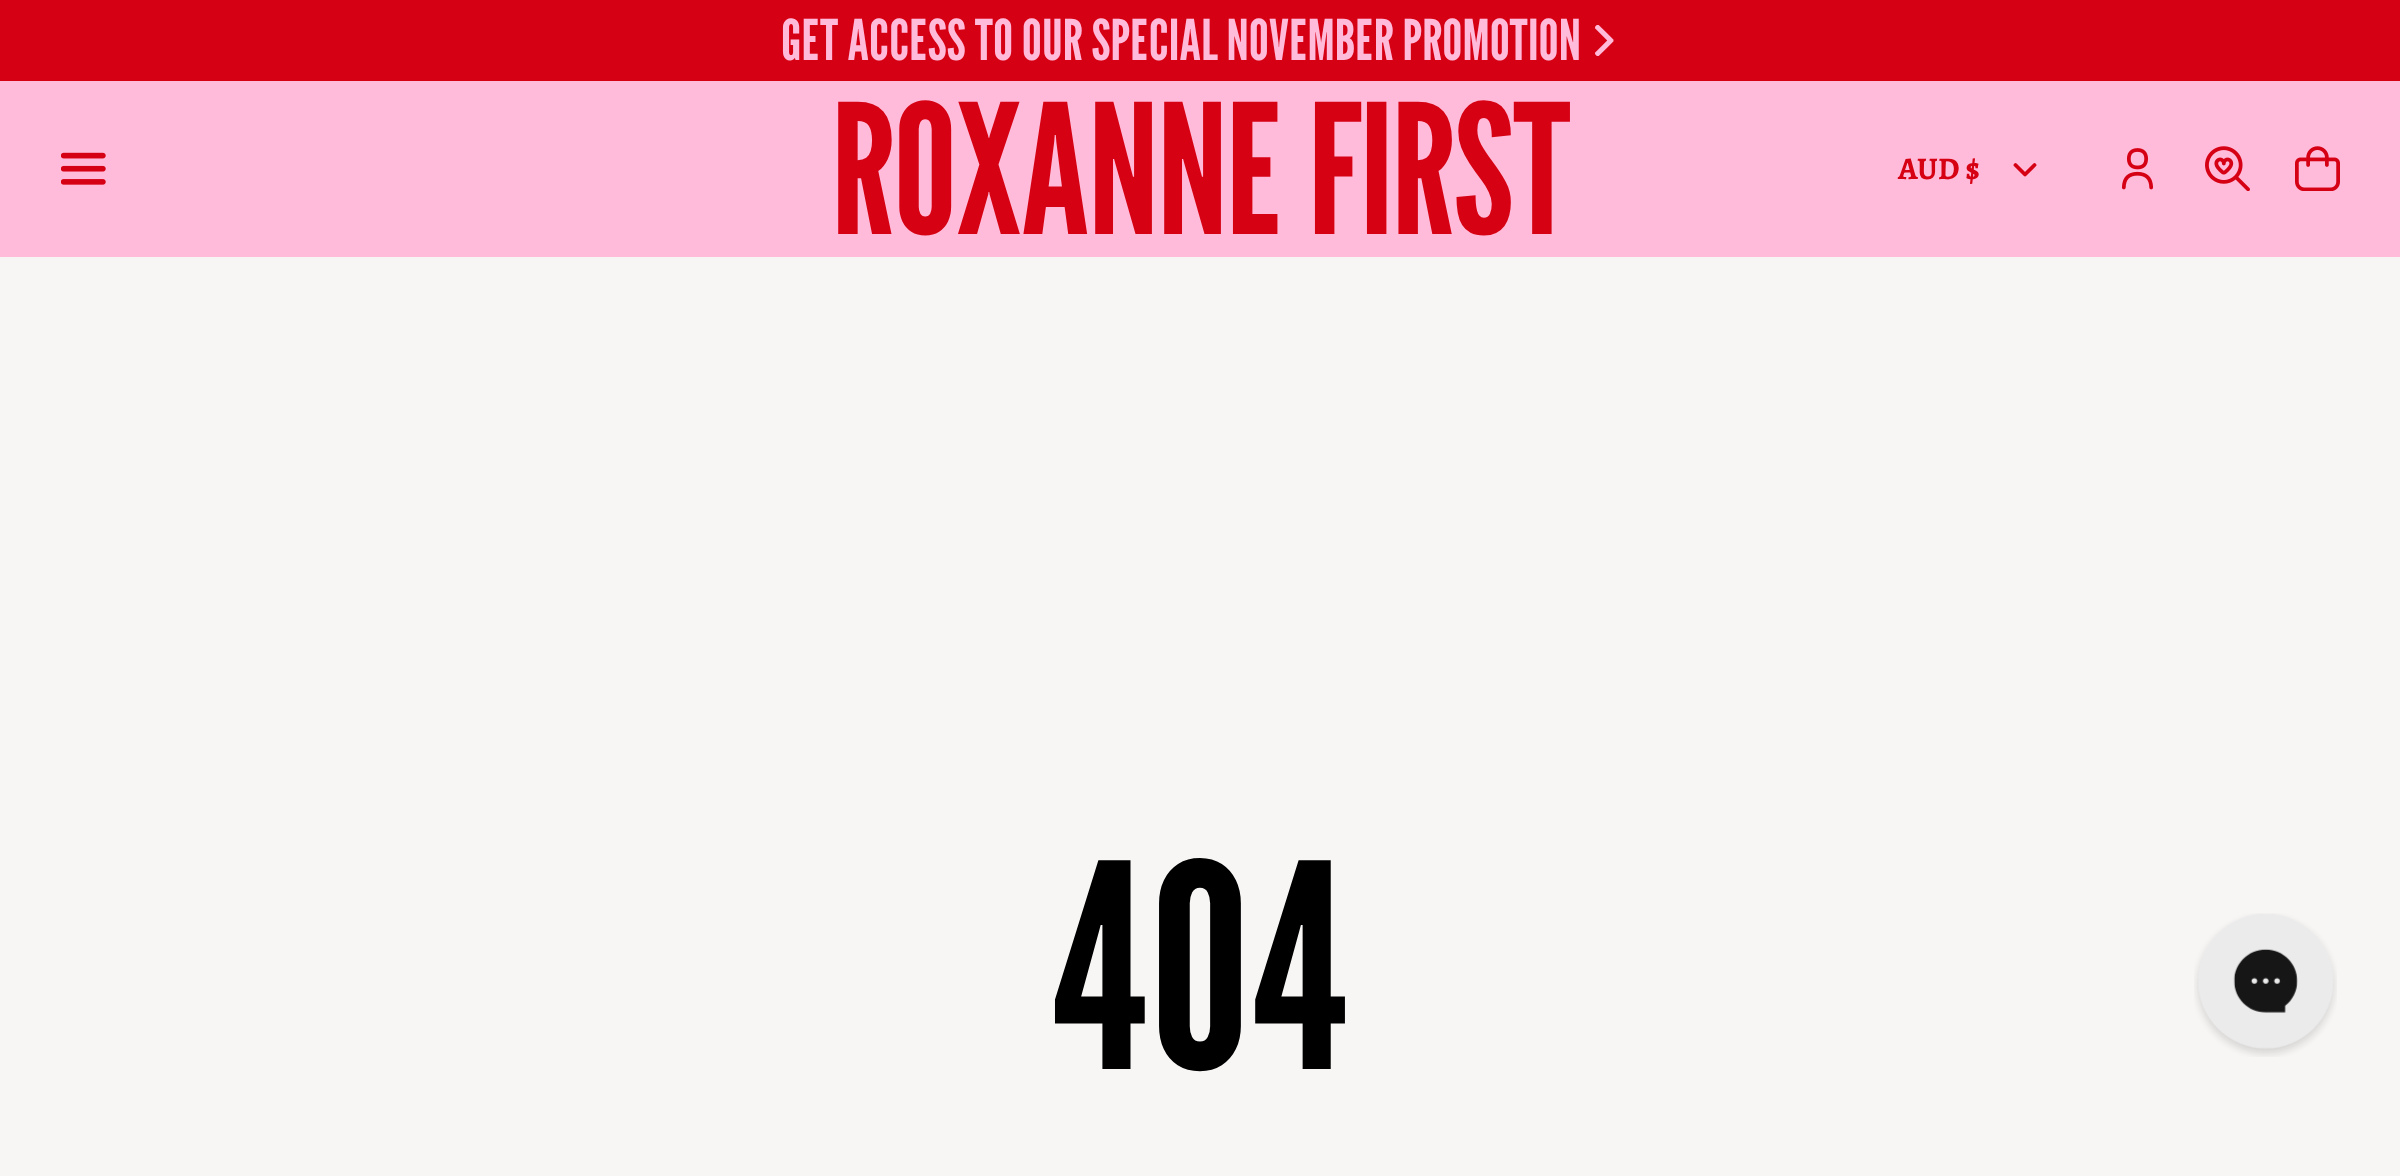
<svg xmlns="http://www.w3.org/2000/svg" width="2400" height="1176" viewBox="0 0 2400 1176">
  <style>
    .t1 { font: 56.25px League Gothic; fill: #ffbbd9; }
    .t2 { font: 180px League Gothic; letter-spacing: -2.25px; fill: #d60214; }
    .t3 { font: bold 31.5px Alegreya; fill: #d60214; }
    .t4 { font: 284px League Gothic; fill: #000; }
  </style>
  <rect width="100%" height="100%" fill="#f8f6f5"/>
  <rect x="0" y="0" width="2400" height="81" fill="#d60015"/>
  <text x="781" y="60" class="t1">GET ACCESS TO OUR SPECIAL NOVEMBER PROMOTION</text>
  <image x="1595" y="25" width="19" height="31" href="images/1.png"/>
  <rect x="0" y="81" width="2400" height="176" fill="#ffbbd9"/>
  <image x="61" y="152" width="45" height="33" href="images/2.png"/>
  <text x="831" y="234" class="t2">ROXANNE FIRST</text>
  <text x="1898" y="179" class="t3">AUD $</text>
  <path d="M2015.5 165L2025 174.5L2034.5 165" fill="none" stroke="#d60015" stroke-width="3.8" stroke-linecap="round" stroke-linejoin="round"/>
  <image x="2121" y="148" width="33" height="42" href="images/3.png"/>
  <image x="2205" y="146" width="45" height="45" href="images/4.png"/>
  <image x="2295" y="146" width="45" height="45" href="images/5.png"/>
  <text x="1050" y="1069" class="t4">404</text>
  <image x="2194" y="913" width="143" height="144" href="images/6.png"/>
</svg>
